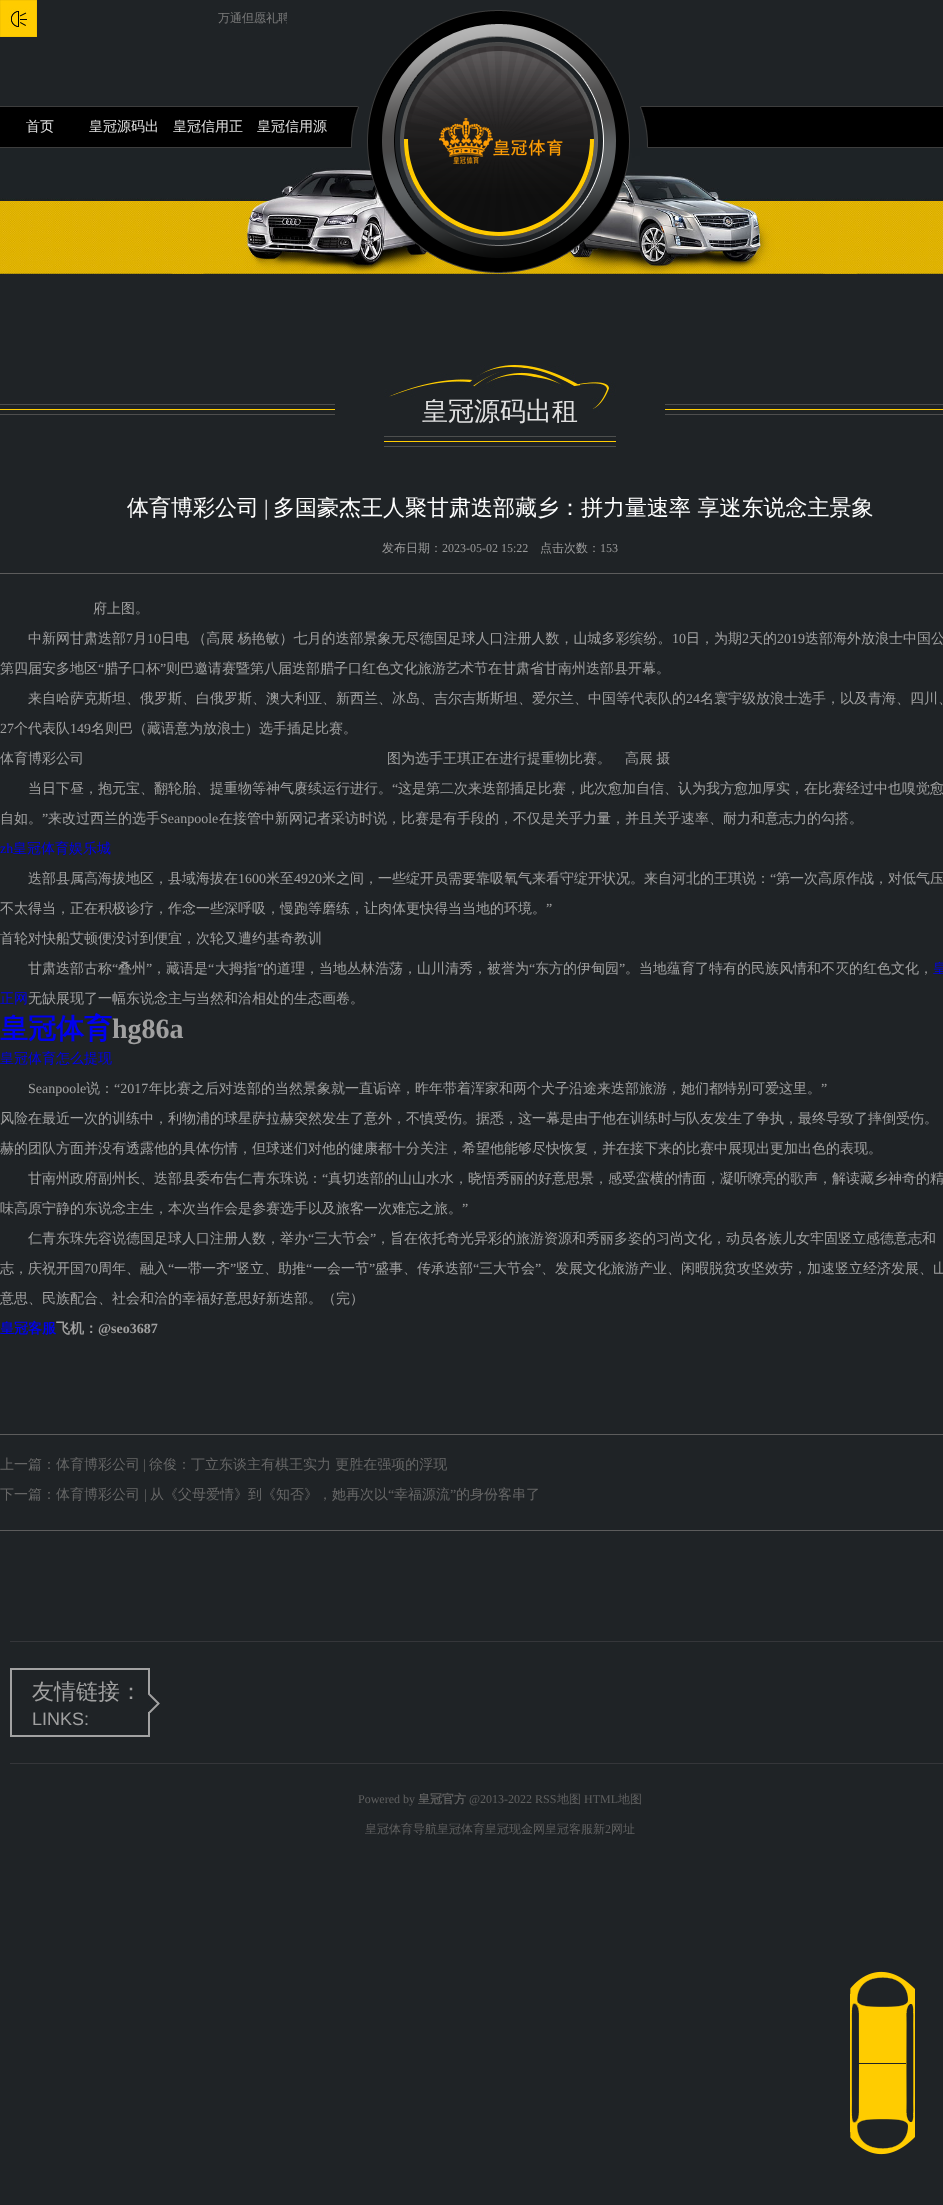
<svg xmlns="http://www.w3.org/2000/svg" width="943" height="2205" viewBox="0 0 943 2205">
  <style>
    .t1 { font: 500 12px WenQuanYi Zen Hei; fill: #7c7c7c; }
    .t2 { font: 500 14px WenQuanYi Zen Hei; fill: #e1e1e1; }
    .t3 { font: 500 26px WenQuanYi Zen Hei; fill: #e1e1e1; }
    .t4 { font: 500 22px WenQuanYi Zen Hei; fill: #fff; }
    .t5 { font: 22px Liberation Serif; fill: #fff; }
    .t6 { font: 500 12px WenQuanYi Zen Hei; fill: #999; }
    .t7 { font: 12px Liberation Serif; fill: #999; }
    .t8 { font: 500 14px WenQuanYi Zen Hei; fill: #a0a0a0; }
    .t9 { font: 14px Liberation Serif; fill: #a0a0a0; }
    .t10 { font: 14px Liberation Serif; fill: #00e; }
    .t11 { font: 500 14px WenQuanYi Zen Hei; fill: #00e; }
    .t12 { font: bold 28px WenQuanYi Zen Hei; fill: #00e; }
    .t13 { font: bold 28px Liberation Serif; fill: #a0a0a0; }
    .t14 { font: bold 14px WenQuanYi Zen Hei; fill: #00e; }
    .t15 { font: bold 14px WenQuanYi Zen Hei; fill: #a0a0a0; }
    .t16 { font: bold 14px Liberation Serif; fill: #a0a0a0; }
    .t17 { font: 500 14px WenQuanYi Zen Hei; fill: #666; }
    .t18 { font: 14px Liberation Serif; fill: #666; }
    .t19 { font: 500 22px WenQuanYi Zen Hei; fill: #a0a0a0; }
    .t20 { font: 18px Liberation Sans; fill: #a0a0a0; }
    .t21 { font: 12px Liberation Serif; fill: #606060; }
    .t22 { font: bold 12px WenQuanYi Zen Hei; fill: #606060; }
    .t23 { font: 500 12px WenQuanYi Zen Hei; fill: #606060; }
  </style>
  <defs>
    <clipPath id="clip1"><rect x="57" y="0" width="230" height="37"/></clipPath>
  </defs>
  <rect width="100%" height="100%" fill="#1f2326"/>
  <image x="0" y="0" width="37" height="37" href="images/1.png"/>
  <g clip-path="url(#clip1)">
    <text x="218" y="22" class="t1">万通但愿礼聘</text>
  </g>
  <rect x="0" y="107" width="943" height="40" fill="#000"/>
  <rect x="0" y="106" width="943" height="1" fill="#3d3d3d"/>
  <rect x="0" y="147" width="943" height="1" fill="#3d3d3d"/>
  <image x="0" y="148" width="943" height="127" href="images/4.png"/>
  <image x="351" y="10" width="297" height="263" href="images/2.png"/>
  <image x="439" y="118" width="124" height="46" href="images/3.png"/>
  <text x="26" y="131" class="t2">首页</text>
  <text x="89" y="131" class="t2">皇冠源码出</text>
  <text x="173" y="131" class="t2">皇冠信用正</text>
  <text x="257" y="131" class="t2">皇冠信用源</text>
  <image x="0" y="404" width="943" height="11" href="images/5.png"/>
  <rect x="335" y="404" width="330" height="11" fill="#1f2326"/>
  <image x="384" y="365" width="232" height="82" href="images/6.png"/>
  <text x="422" y="420" class="t3">皇冠源码出租</text>
  <text x="127" y="515" class="t4">体育博彩公司</text>
  <text x="264" y="515" class="t5">|</text>
  <text x="273" y="515" class="t4">多国豪杰王人聚甘肃迭部藏乡：拼力量速率 享迷东说念主景象</text>
  <rect x="0" y="573" width="943" height="1" fill="#5c5c5c"/>
  <text x="382" y="552" class="t6">发布日期：</text>
  <text x="442" y="552" class="t7">2023-05-02 15:22</text>
  <text x="540" y="552" class="t6">点击次数：</text>
  <text x="600" y="552" class="t7">153</text>
  <text x="93" y="613" class="t8">府上图。</text>
  <text x="28" y="643" class="t8">中新网甘肃迭部</text>
  <text x="126" y="643" class="t9">7</text>
  <text x="133" y="643" class="t8">月</text>
  <text x="147" y="643" class="t9">10</text>
  <text x="161" y="643" word-spacing="-1" class="t8">日电 （高展 杨艳敏）七月的迭部景象无尽德国足球人口注册人数，山城多彩缤纷。</text>
  <text x="672" y="643" class="t9">10</text>
  <text x="686" y="643" class="t8">日，为期</text>
  <text x="742" y="643" class="t9">2</text>
  <text x="749" y="643" class="t8">天的</text>
  <text x="777" y="643" class="t9">2019</text>
  <text x="805" y="643" class="t8">迭部海外放浪士中国公</text>
  <text x="0" y="673" class="t8">第四届安多地区</text>
  <text x="98" y="673" class="t9">“</text>
  <text x="104" y="673" class="t8">腊子口杯</text>
  <text x="160" y="673" class="t9">”</text>
  <text x="166" y="673" class="t8">则巴邀请赛暨第八届迭部腊子口红色文化旅游艺术节在甘肃省甘南州迭部县开幕。</text>
  <text x="28" y="703" class="t8">来自哈萨克斯坦、俄罗斯、白俄罗斯、澳大利亚、新西兰、冰岛、吉尔吉斯斯坦、爱尔兰、中国等代表队的</text>
  <text x="686" y="703" class="t9">24</text>
  <text x="700" y="703" class="t8">名寰宇级放浪士选手，以及青海、四川、</text>
  <text x="0" y="733" class="t9">27</text>
  <text x="14" y="733" class="t8">个代表队</text>
  <text x="70" y="733" class="t9">149</text>
  <text x="91" y="733" class="t8">名则巴（藏语意为放浪士）选手插足比赛。</text>
  <text x="0" y="763" class="t8">体育博彩公司</text>
  <text x="387" y="763" word-spacing="-1" class="t8">图为选手王琪正在进行提重物比赛。　高展 摄</text>
  <text x="28" y="793" class="t8">当日下昼，抱元宝、翻轮胎、提重物等神气赓续运行进行。</text>
  <text x="392" y="793" class="t9">“</text>
  <text x="398" y="793" class="t8">这是第二次来迭部插足比赛，此次愈加自信、认为我方愈加厚实，在比赛经过中也嗅觉愈</text>
  <text x="0" y="823" class="t8">自如。</text>
  <text x="42" y="823" class="t9">”</text>
  <text x="48" y="823" class="t8">来改过西兰的选手</text>
  <text x="160" y="823" class="t9">Seanpoole</text>
  <text x="219" y="823" class="t8">在接管中新网记者采访时说，比赛是有手段的，不仅是关乎力量，并且关乎速率、耐力和意志力的勾搭。</text>
  <text x="0" y="853" class="t10">zh</text>
  <text x="13" y="853" class="t11">皇冠体育娱乐城</text>
  <text x="28" y="883" class="t8">迭部县属高海拔地区，县域海拔在</text>
  <text x="238" y="883" class="t9">1600</text>
  <text x="266" y="883" class="t8">米至</text>
  <text x="294" y="883" class="t9">4920</text>
  <text x="322" y="883" class="t8">米之间，一些绽开员需要靠吸氧气来看守绽开状况。来自河北的王琪说：</text>
  <text x="770" y="883" class="t9">“</text>
  <text x="776" y="883" class="t8">第一次高原作战，对低气压</text>
  <text x="0" y="913" class="t8">不太得当，正在积极诊疗，作念一些深呼吸，慢跑等磨练，让肉体更快得当当地的环境。</text>
  <text x="546" y="913" class="t9">”</text>
  <text x="0" y="943" class="t8">首轮对快船艾顿便没讨到便宜，次轮又遭约基奇教训</text>
  <text x="28" y="973" class="t8">甘肃迭部古称</text>
  <text x="112" y="973" class="t9">“</text>
  <text x="118" y="973" class="t8">叠州</text>
  <text x="146" y="973" class="t9">”</text>
  <text x="152" y="973" class="t8">，藏语是</text>
  <text x="208" y="973" class="t9">“</text>
  <text x="215" y="973" class="t8">大拇指</text>
  <text x="257" y="973" class="t9">”</text>
  <text x="263" y="973" class="t8">的道理，当地丛林浩荡，山川清秀，被誉为</text>
  <text x="529" y="973" class="t9">“</text>
  <text x="535" y="973" class="t8">东方的伊甸园</text>
  <text x="619" y="973" class="t9">”</text>
  <text x="625" y="973" class="t8">。当地蕴育了特有的民族风情和不灭的红色文化，</text>
  <text x="933" y="973" class="t11">皇</text>
  <text x="0" y="1003" class="t11">正网</text>
  <text x="28" y="1003" class="t8">无缺展现了一幅东说念主与当然和洽相处的生态画卷。</text>
  <text x="0" y="1038" class="t12">皇冠体育</text>
  <text x="112" y="1038" class="t13">hg86a</text>
  <text x="0" y="1063" class="t11">皇冠体育怎么提现</text>
  <text x="28" y="1093" class="t9">Seanpoole</text>
  <text x="86" y="1093" class="t8">说：</text>
  <text x="114" y="1093" class="t9">“2017</text>
  <text x="149" y="1093" class="t8">年比赛之后对迭部的当然景象就一直诟谇，昨年带着浑家和两个犬子沿途来迭部旅游，她们都特别可爱这里。</text>
  <text x="821" y="1093" class="t9">”</text>
  <text x="0" y="1123" class="t8">风险在最近一次的训练中，利物浦的球星萨拉赫突然发生了意外，不慎受伤。据悉，这一幕是由于他在训练时与队友发生了争执，最终导致了摔倒受伤。</text>
  <text x="0" y="1153" class="t8">赫的团队方面并没有透露他的具体伤情，但球迷们对他的健康都十分关注，希望他能够尽快恢复，并在接下来的比赛中展现出更加出色的表现。</text>
  <text x="28" y="1183" class="t8">甘南州政府副州长、迭部县委布告仁青东珠说：</text>
  <text x="322" y="1183" class="t9">“</text>
  <text x="328" y="1183" class="t8">真切迭部的山山水水，晓悟秀丽的好意思景，感受蛮横的情面，凝听嘹亮的歌声，解读藏乡神奇的精</text>
  <text x="0" y="1213" class="t8">味高原宁静的东说念主生，本次当作会是参赛选手以及旅客一次难忘之旅。</text>
  <text x="462" y="1213" class="t9">”</text>
  <text x="28" y="1243" class="t8">仁青东珠先容说德国足球人口注册人数，举办</text>
  <text x="308" y="1243" class="t9">“</text>
  <text x="314" y="1243" class="t8">三大节会</text>
  <text x="370" y="1243" class="t9">”</text>
  <text x="376" y="1243" class="t8">，旨在依托奇光异彩的旅游资源和秀丽多姿的习尚文化，动员各族儿女牢固竖立感德意志和</text>
  <text x="0" y="1273" class="t8">志，庆祝开国</text>
  <text x="84" y="1273" class="t9">70</text>
  <text x="98" y="1273" class="t8">周年、融入</text>
  <text x="168" y="1273" class="t9">“</text>
  <text x="174" y="1273" class="t8">一带一齐</text>
  <text x="230" y="1273" class="t9">”</text>
  <text x="236" y="1273" class="t8">竖立、助推</text>
  <text x="306" y="1273" class="t9">“</text>
  <text x="313" y="1273" class="t8">一会一节</text>
  <text x="369" y="1273" class="t9">”</text>
  <text x="375" y="1273" class="t8">盛事、传承迭部</text>
  <text x="473" y="1273" class="t9">“</text>
  <text x="479" y="1273" class="t8">三大节会</text>
  <text x="535" y="1273" class="t9">”</text>
  <text x="541" y="1273" class="t8">、发展文化旅游产业、闲暇脱贫攻坚效劳，加速竖立经济发展、山</text>
  <text x="0" y="1303" class="t8">意思、民族配合、社会和洽的幸福好意思好新迭部。（完）</text>
  <text x="0" y="1333" class="t14">皇冠客服</text>
  <text x="56" y="1333" class="t15">飞机：</text>
  <text x="98" y="1333" class="t16">@seo3687</text>
  <rect x="0" y="1434" width="943" height="1" fill="#5c5c5c"/>
  <rect x="0" y="1530" width="943" height="1" fill="#5c5c5c"/>
  <text x="0" y="1469" class="t17">上一篇：体育博彩公司</text>
  <text x="143" y="1469" class="t18">|</text>
  <text x="149" y="1469" class="t17">徐俊：丁立东谈主有棋王实力 更胜在强项的浮现</text>
  <text x="0" y="1499" class="t17">下一篇：体育博彩公司</text>
  <text x="144" y="1499" class="t18">|</text>
  <text x="150" y="1499" class="t17">从《父母爱情》到《知否》，她再次以</text>
  <text x="388" y="1499" class="t18">“</text>
  <text x="394" y="1499" class="t17">幸福源流</text>
  <text x="450" y="1499" class="t18">”</text>
  <text x="456" y="1499" class="t17">的身份客串了</text>
  <rect x="10" y="1641" width="933" height="1" fill="#35363a"/>
  <rect x="10" y="1763" width="933" height="1" fill="#35363a"/>
  <rect x="11" y="1669" width="138" height="67" fill="none" stroke="#a2a2a2" stroke-width="2"/>
  <text x="32" y="1699" class="t19">友情链接：</text>
  <image x="148" y="1694" width="12" height="19" href="images/7.png"/>
  <text x="32" y="1725" class="t20">LINKS:</text>
  <text x="358" y="1803" class="t21">Powered by</text>
  <text x="418" y="1803" class="t22">皇冠官方</text>
  <text x="469" y="1803" class="t21">@2013-2022 RSS</text>
  <text x="557" y="1803" class="t23">地图</text>
  <text x="584" y="1803" class="t21">HTML</text>
  <text x="618" y="1803" class="t23">地图</text>
  <text x="365" y="1833" class="t23">皇冠体育导航皇冠体育皇冠现金网皇冠客服新</text>
  <text x="605" y="1833" class="t21">2</text>
  <text x="611" y="1833" class="t23">网址</text>
  <image x="850" y="1971" width="65" height="184" href="images/8.png"/>
</svg>
